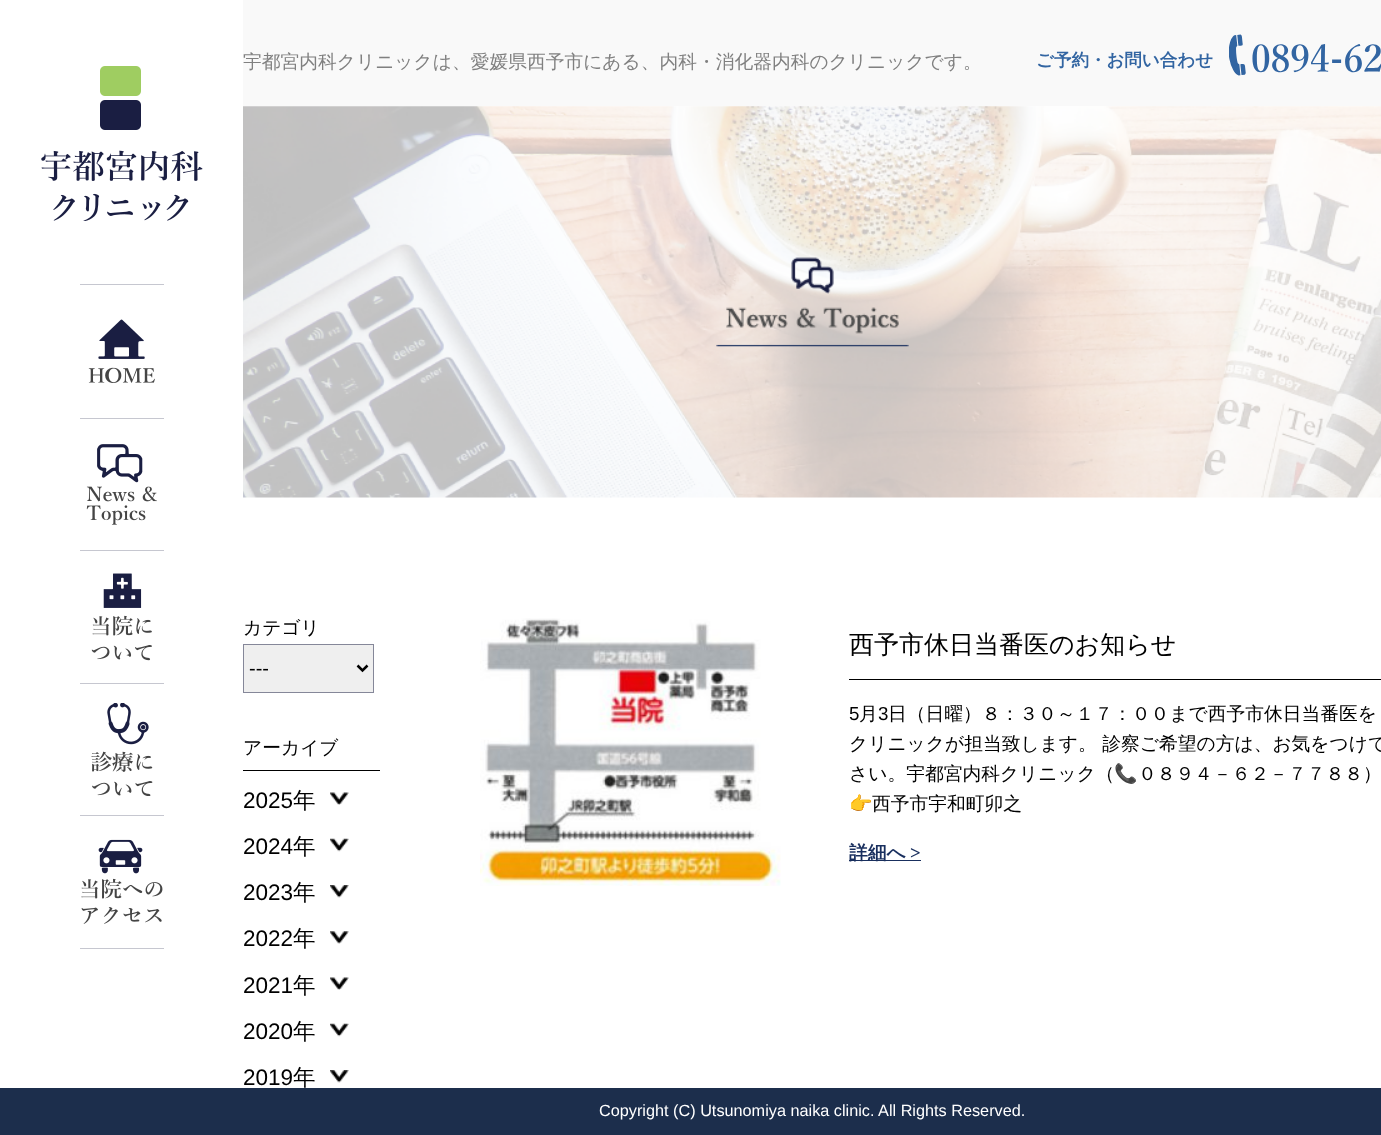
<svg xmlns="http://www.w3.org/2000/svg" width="1381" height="1135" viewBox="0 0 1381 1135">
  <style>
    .t1 { font: 500 18.75px WenQuanYi Zen Hei; fill: #808080; }
    .t2 { font: bold 17.5px WenQuanYi Zen Hei; fill: #3265a2; }
    .t3 { font: 500 18.75px WenQuanYi Zen Hei; fill: #000; }
    .t4 { font: 20px Liberation Sans; fill: #000; }
    .t5 { font: 22.5px Liberation Sans; fill: #000; }
    .t6 { font: 500 22.5px WenQuanYi Zen Hei; fill: #000; }
    .t7 { font: 500 25px WenQuanYi Zen Hei; fill: #000; }
    .t8 { font: 18.75px Liberation Sans; fill: #000; }
    .t9 { font: 18.75px Noto Color Emoji; fill: #000; }
    .t10 { font: bold 18.75px WenQuanYi Zen Hei; fill: #192f5e; }
    .t11 { font: bold 18.75px Liberation Serif; fill: #192f5e; }
    .t12 { font: 16.25px Liberation Sans; fill: #fff; }
  </style>
  <rect width="100%" height="100%" fill="#fff"/>
  <image x="41" y="66" width="162" height="155" href="images/1.png"/>
  <rect x="80" y="284" width="84" height="1" fill="#c6c7d0"/>
  <image x="88" y="319" width="67" height="64" href="images/2.png"/>
  <rect x="80" y="418" width="84" height="1" fill="#c6c7d0"/>
  <image x="86" y="444" width="71" height="81" href="images/3.png"/>
  <rect x="80" y="550" width="84" height="1" fill="#c6c7d0"/>
  <image x="91" y="573" width="61" height="88" href="images/4.png"/>
  <rect x="80" y="683" width="84" height="1" fill="#c6c7d0"/>
  <image x="91" y="703" width="62" height="93" href="images/5.png"/>
  <rect x="80" y="815" width="84" height="1" fill="#c6c7d0"/>
  <rect x="80" y="948" width="84" height="1" fill="#c6c7d0"/>
  <image x="81" y="839" width="82" height="85" href="images/6.png"/>
  <rect x="243" y="0" width="1138" height="106" fill="#f9f9f9"/>
  <text x="243" y="68" class="t1">宇都宮内科クリニックは、愛媛県西予市にある、内科・消化器内科のクリニックです。</text>
  <text x="1036" y="66" class="t2">ご予約・お問い合わせ</text>
  <image x="1229" y="34" width="152" height="42" href="images/7.png"/>
  <image x="243" y="106" width="1138" height="392" href="images/8.png"/>
  <image x="716" y="257" width="193" height="90" href="images/9.png"/>
  <text x="243" y="634" class="t3">カテゴリ</text>
  <rect x="243.5" y="644.5" width="130" height="48" fill="#efefef" stroke="#858799"/>
  <path d="M357.5 665.5L362.5 670.5L367.5 665.5" fill="none" stroke="#000" stroke-width="2.5"/>
  <text x="249" y="675" class="t4">---</text>
  <rect x="243" y="770" width="137" height="1" fill="#000"/>
  <text x="243" y="754" class="t3">アーカイブ</text>
  <text x="243" y="808" class="t5">2025</text>
  <text x="293" y="808" class="t6">年</text>
  <image x="330" y="792" width="19" height="13" href="images/10.png"/>
  <text x="243" y="854" class="t5">2024</text>
  <text x="293" y="854" class="t6">年</text>
  <image x="330" y="838" width="19" height="14" href="images/11.png"/>
  <text x="243" y="900" class="t5">2023</text>
  <text x="293" y="900" class="t6">年</text>
  <image x="330" y="885" width="19" height="13" href="images/12.png"/>
  <text x="243" y="946" class="t5">2022</text>
  <text x="293" y="946" class="t6">年</text>
  <image x="330" y="931" width="19" height="13" href="images/13.png"/>
  <text x="243" y="993" class="t5">2021</text>
  <text x="293" y="993" class="t6">年</text>
  <image x="330" y="977" width="19" height="13" href="images/10.png"/>
  <text x="243" y="1039" class="t5">2020</text>
  <text x="293" y="1039" class="t6">年</text>
  <image x="330" y="1023" width="19" height="14" href="images/14.png"/>
  <text x="243" y="1085" class="t5">2019</text>
  <text x="293" y="1085" class="t6">年</text>
  <image x="330" y="1070" width="19" height="13" href="images/12.png"/>
  <image x="480" y="618" width="301" height="268" href="images/15.png"/>
  <rect x="849" y="679" width="532" height="1" fill="#000"/>
  <text x="849" y="653" class="t7">西予市休日当番医のお知らせ</text>
  <text x="849" y="720" class="t8">5</text>
  <text x="859" y="720" class="t3">月</text>
  <text x="878" y="720" class="t8">3</text>
  <text x="888" y="720" class="t3">日（日曜）８：３０～１７：００まで西予市休日当番医を</text>
  <text x="849" y="750" class="t3">クリニックが担当致します。 診察ご希望の方は、お気をつけて</text>
  <text x="849" y="780" class="t3">さい。宇都宮内科クリニック（</text>
  <text x="1114" y="780" class="t9">📞</text>
  <text x="1138" y="780" class="t3">０８９４－６２－７７８８）</text>
  <text x="849" y="810" class="t9">👉</text>
  <text x="872" y="810" class="t3">西予市宇和町卯之</text>
  <rect x="849" y="860" width="72" height="1" fill="#192f5e"/>
  <text x="849" y="859" class="t10">詳細へ</text>
  <text x="910" y="859" class="t11">&gt;</text>
  <rect x="0" y="1088" width="1381" height="47" fill="#1c2e4c"/>
  <text x="599" y="1116" class="t12">Copyright (C) Utsunomiya naika clinic. All Rights Reserved.</text>
</svg>
